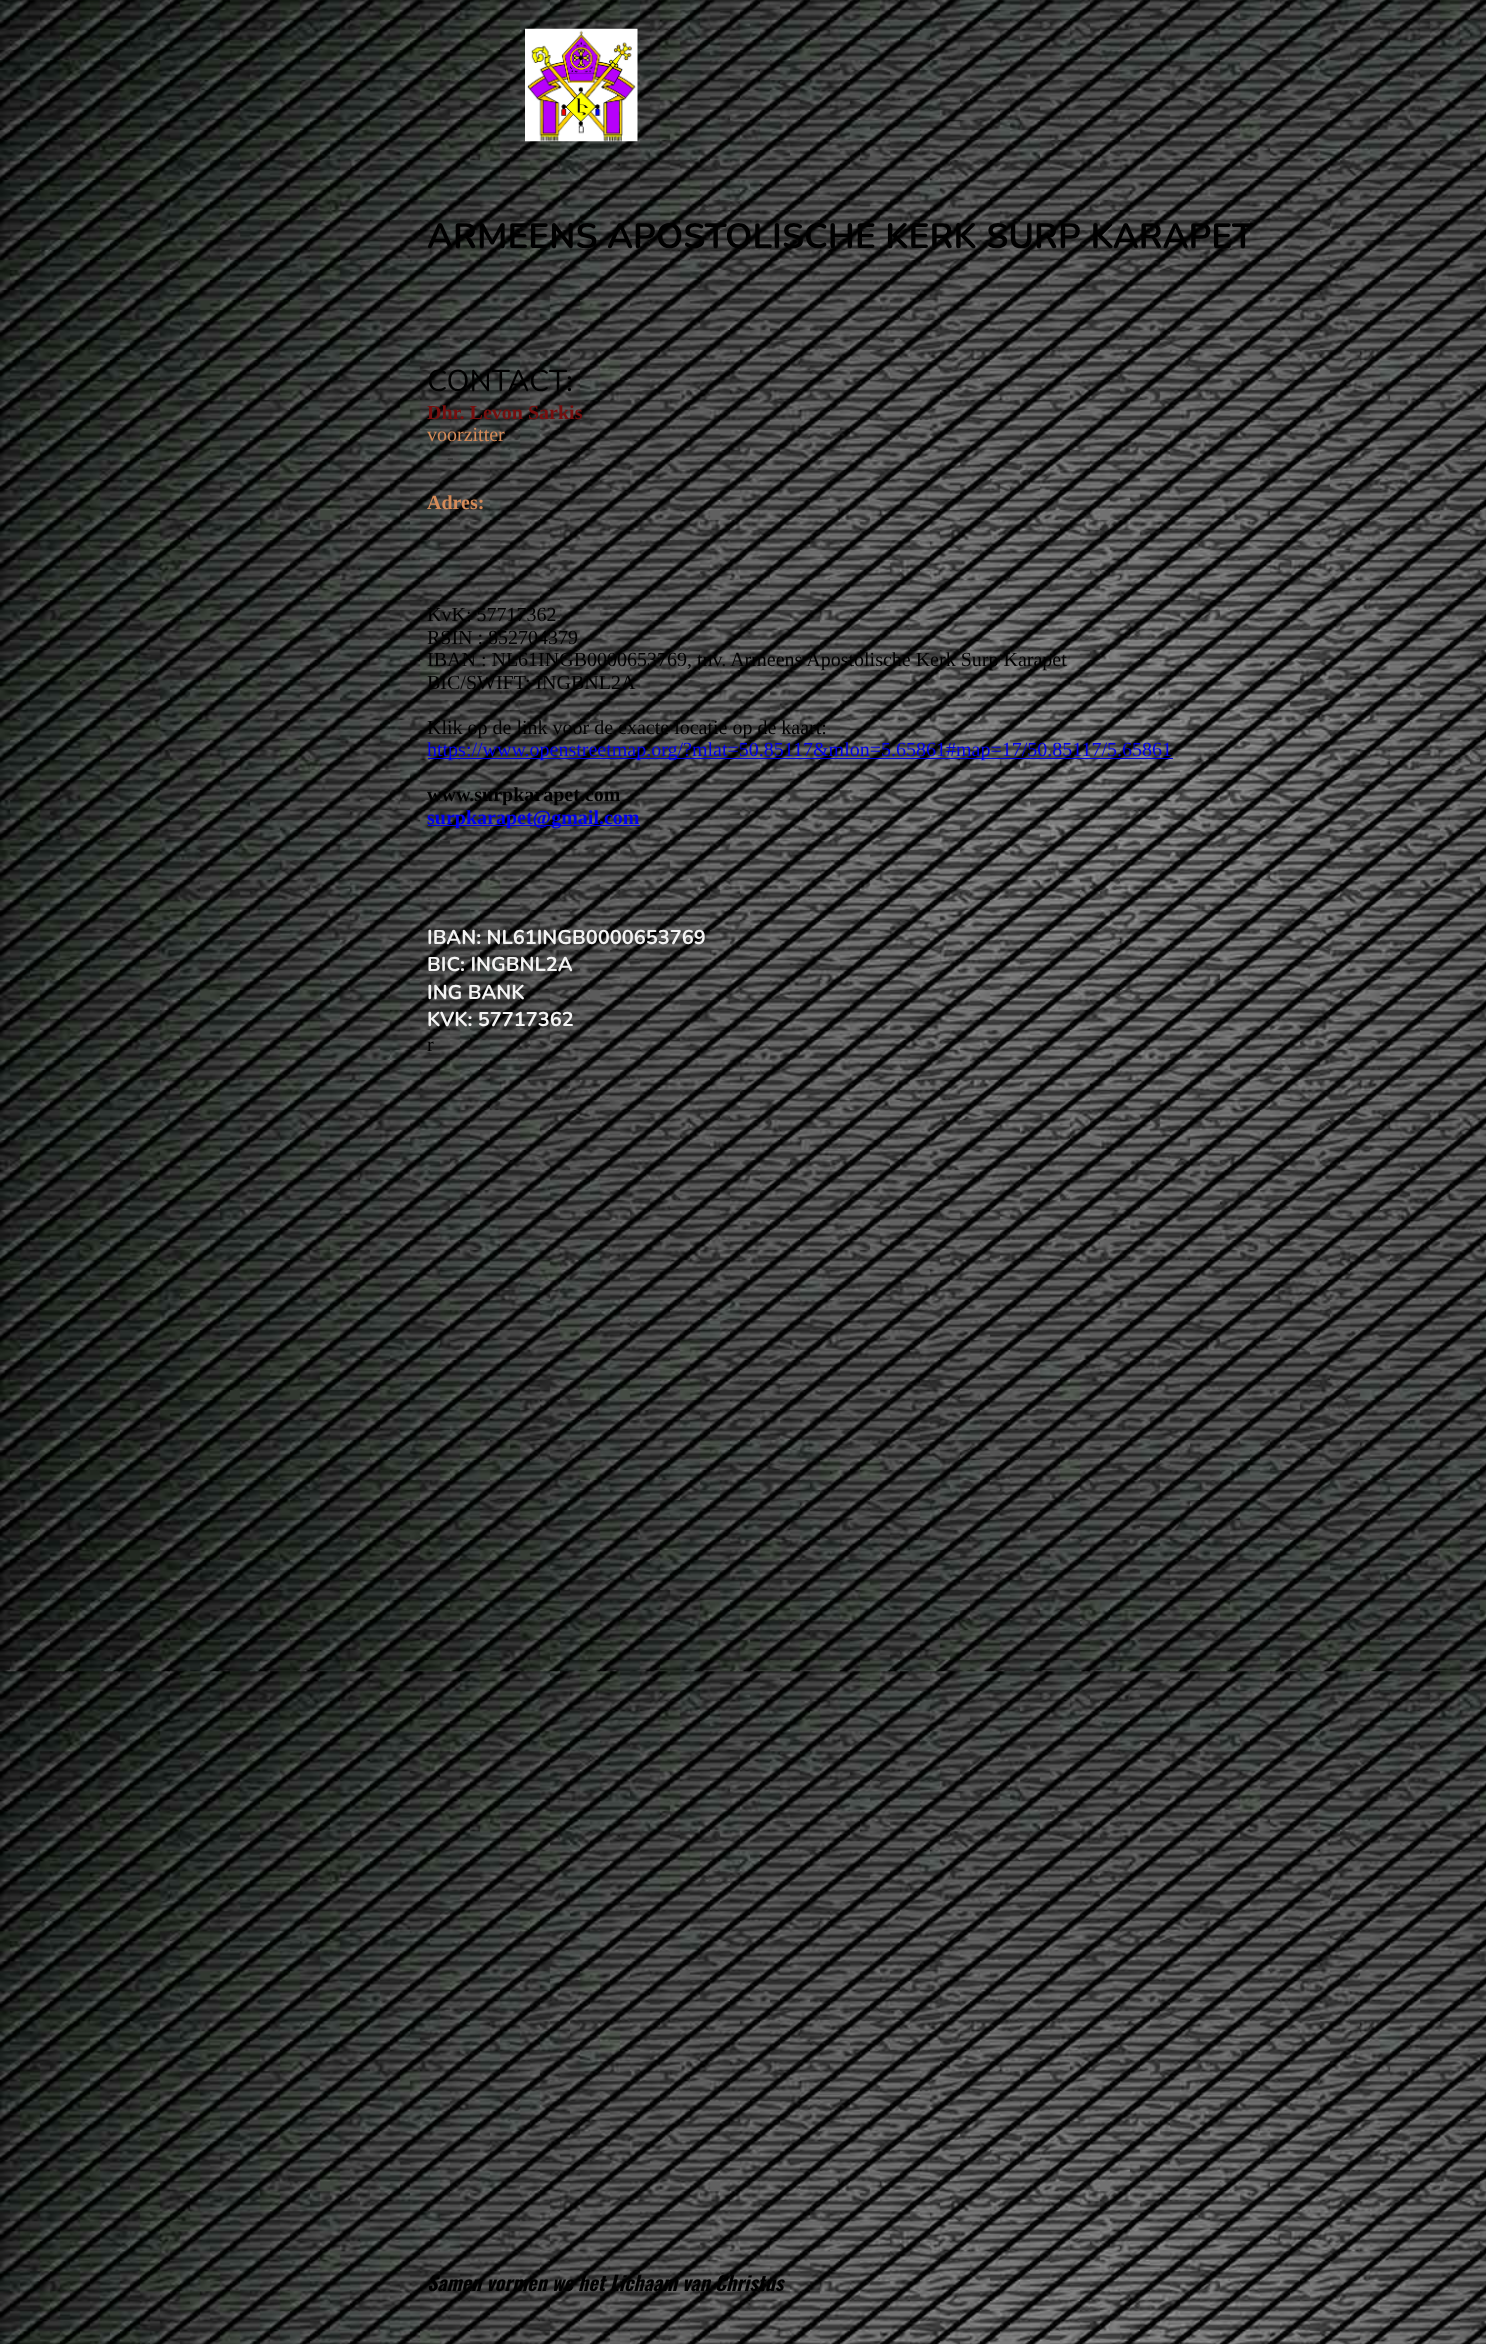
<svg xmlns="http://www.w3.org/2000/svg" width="1486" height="2344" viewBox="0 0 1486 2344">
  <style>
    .t1 { font: bold 35px Nunito; fill: #000; }
    .t2 { font: 30px Nunito; fill: #000; }
    .t3 { font: bold 20px Liberation Serif; fill: #770e0e; }
    .t4 { font: 20px Liberation Serif; fill: #d68b58; }
    .t5 { font: bold 20px Liberation Serif; fill: #333; }
    .t6 { font: bold 20px Liberation Serif; fill: #d68b58; }
    .t7 { font: 20px Liberation Serif; fill: #000; }
    .t8 { font: 20px Liberation Serif; fill: #00e; }
    .t9 { font: bold 20px Liberation Serif; fill: #000; }
    .t10 { font: bold 20px Liberation Serif; fill: #00e; }
    .t11 { font: bold 20px Nunito; fill: #f4f4f4; }
    .t12 { font: italic bold 20px Oswald; fill: #000; }
  </style>
  <rect width="100%" height="100%" fill="#fff"/>
  <image x="0" y="0" width="1486" height="2344" href="images/1.png"/>
  <image x="525" y="28" width="113" height="114" href="images/2.png"/>
  <text x="427" y="248" class="t1">ARMEENS APOSTOLISCHE KERK SURP KARAPET</text>
  <text x="427" y="391" class="t2">CONTACT:</text>
  <text x="427" y="419" class="t3">Dhr. Levon Sarkis</text>
  <text x="427" y="441" class="t4">voorzitter</text>
  <text x="447" y="464" class="t5">-</text>
  <text x="427" y="509" class="t6">Adres:</text>
  <text x="427" y="621" class="t7">KvK: 57717362</text>
  <text x="427" y="644" class="t7">RSIN : 852704379</text>
  <text x="427" y="666" class="t7">IBAN : NL61INGB0000653769, tnv. Armeens Apostolische Kerk Surp Karapet</text>
  <text x="427" y="689" class="t7">BIC/SWIFT: INGBNL2A</text>
  <text x="427" y="734" class="t7">Klik op de link voor de exacte locatie op de kaart:</text>
  <rect x="428" y="758" width="745" height="1" fill="#00e"/>
  <text x="427" y="756" class="t8">https://www.openstreetmap.org/?mlat=50.85117&amp;mlon=5.65861#map=17/50.85117/5.65861</text>
  <text x="427" y="801" class="t9">www.surpkarapet.com</text>
  <rect x="428" y="825" width="212" height="1" fill="#00e"/>
  <text x="427" y="824" class="t10">surpkarapet@gmail.com</text>
  <text x="427" y="944" class="t11">IBAN: NL61INGB0000653769</text>
  <text x="427" y="971" class="t11">BIC: INGBNL2A</text>
  <text x="427" y="999" class="t11">ING BANK</text>
  <text x="427" y="1026" class="t11">KVK: 57717362</text>
  <text x="427" y="1051" class="t7">r</text>
  <text x="427" y="2291" class="t12">Samen vormen we het Lichaam van Christus</text>
</svg>
